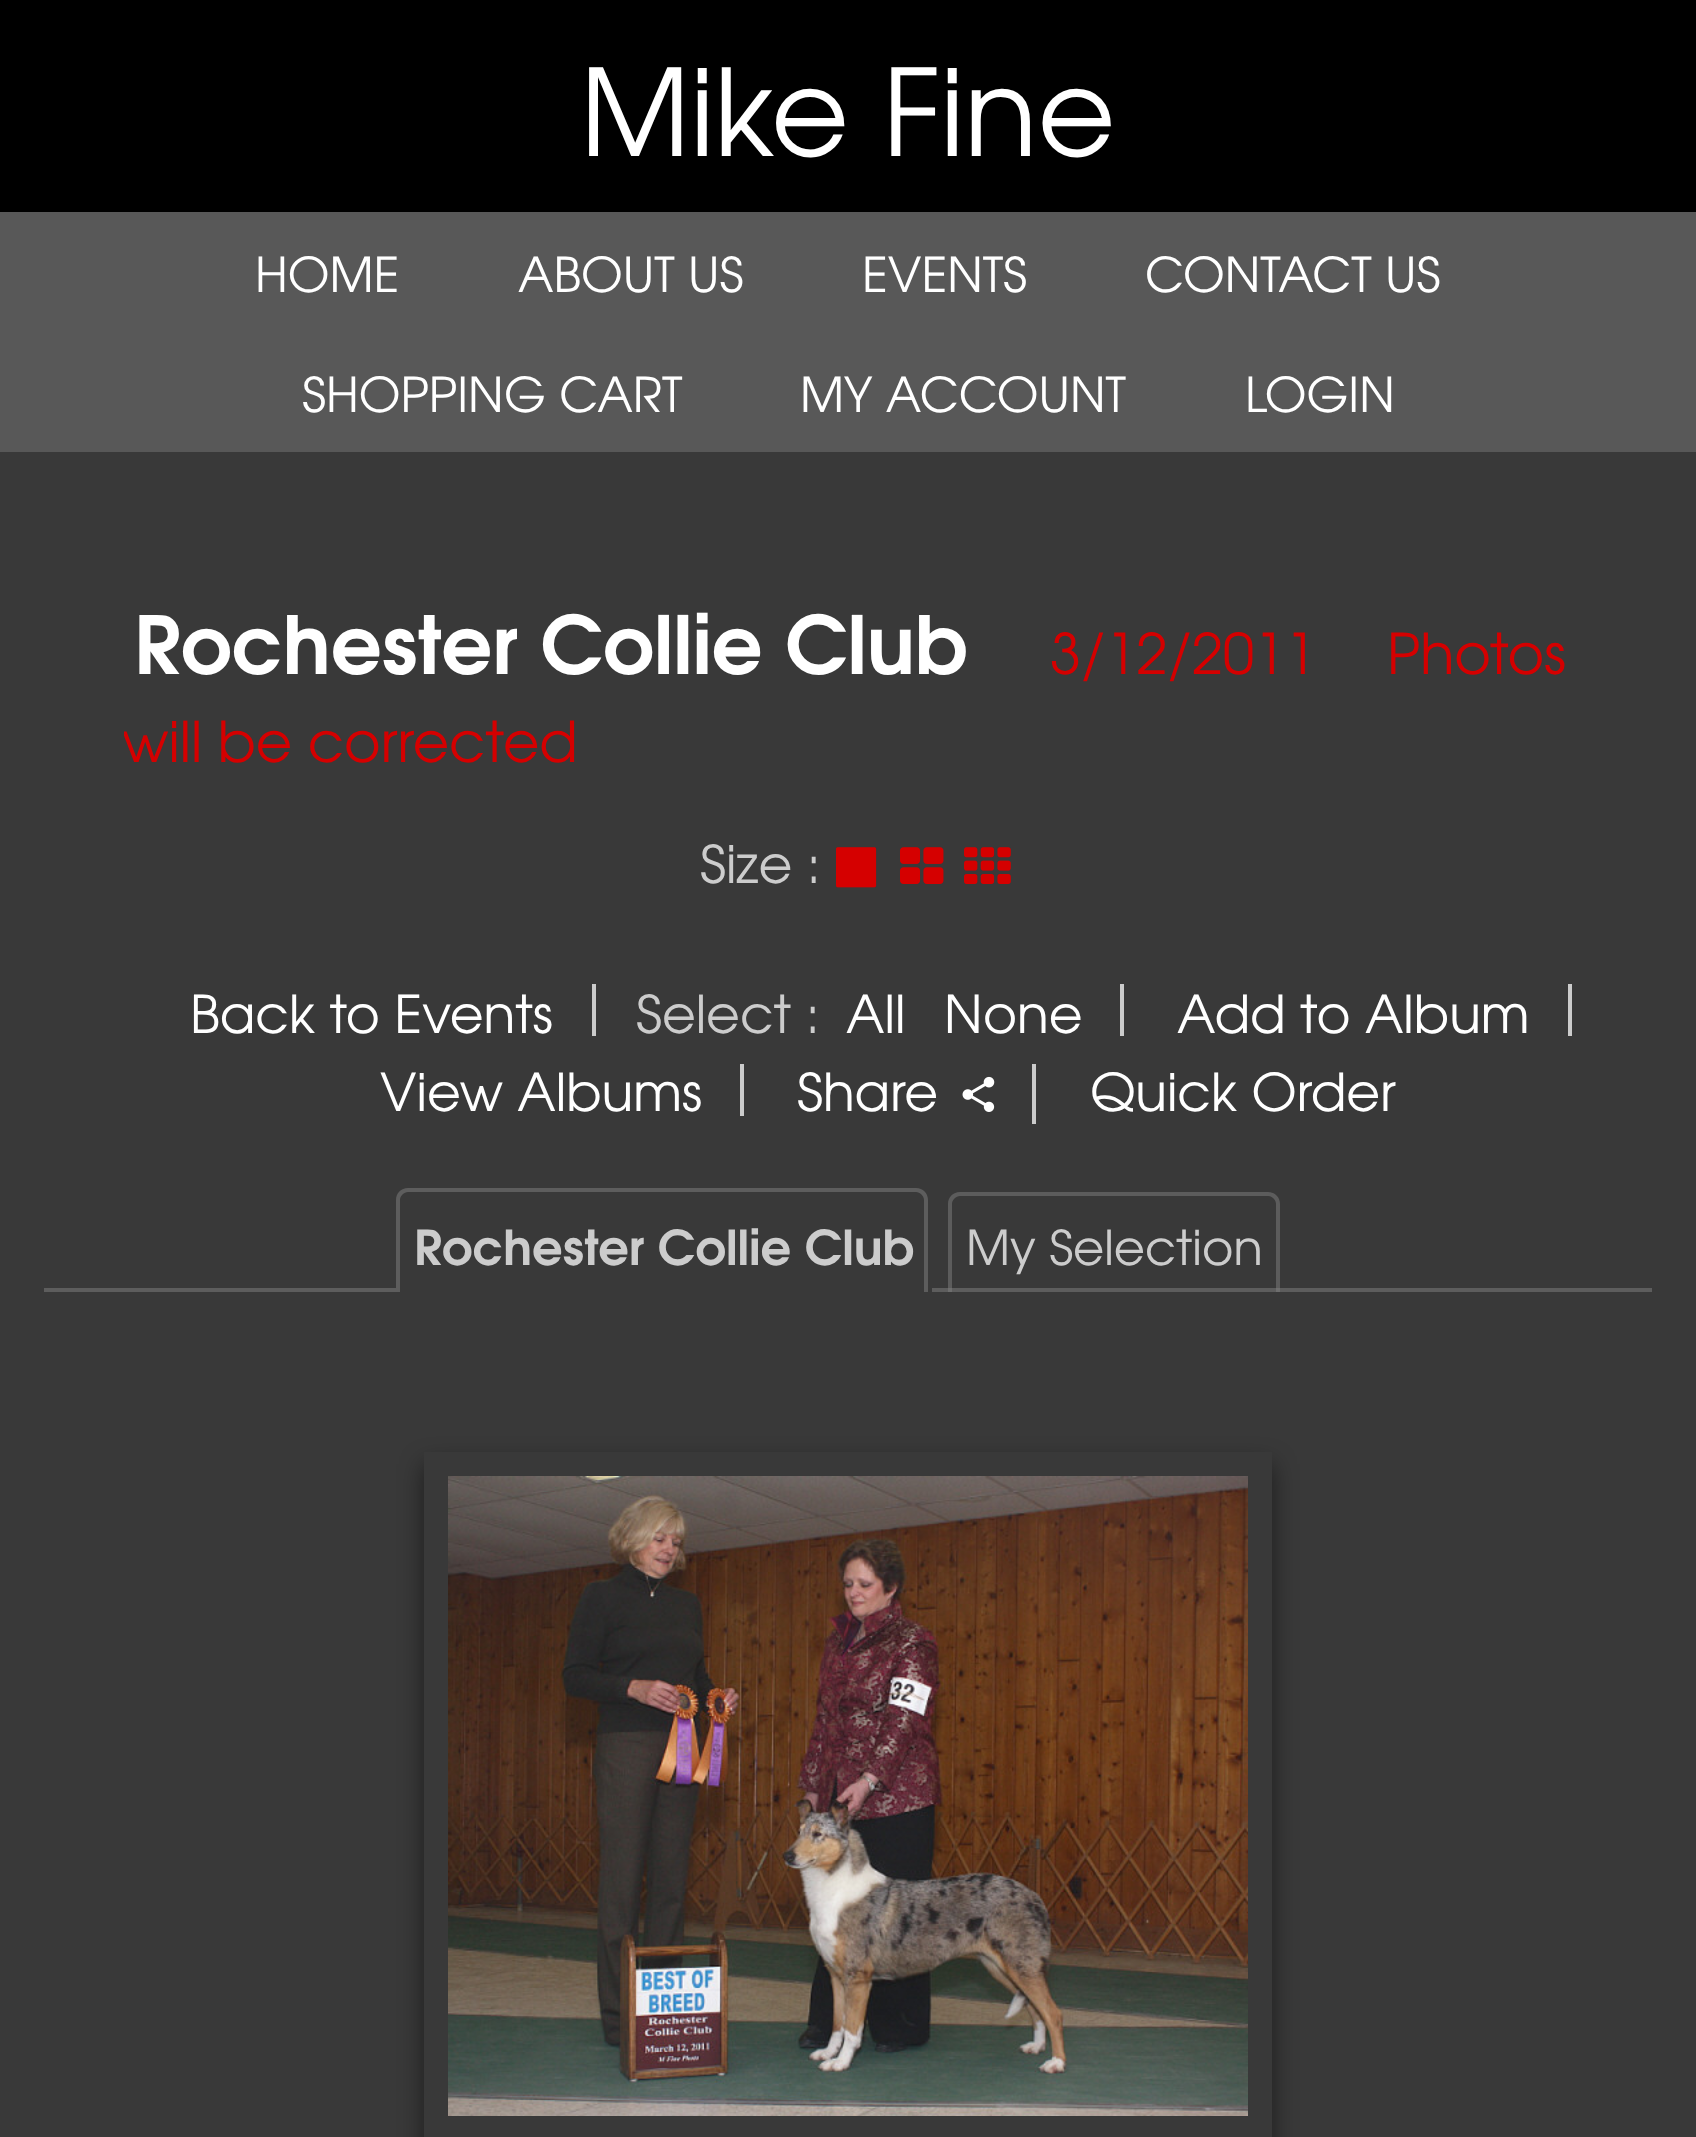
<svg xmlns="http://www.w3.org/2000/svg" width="1696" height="2137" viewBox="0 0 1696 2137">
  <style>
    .t1 { font: 120px TeX Gyre Adventor; fill: #fff; }
    .t2 { font: 48px TeX Gyre Adventor; fill: #fff; }
    .t3 { font: bold 80px TeX Gyre Adventor; fill: #fff; }
    .t4 { font: 56px TeX Gyre Adventor; fill: #d50000; }
    .t5 { font: 52px TeX Gyre Adventor; fill: #ccc; }
    .t6 { font: 52px TeX Gyre Adventor; fill: #fff; }
    .t7 { font: bold 48px TeX Gyre Adventor; fill: #ccc; }
    .t8 { font: 48px TeX Gyre Adventor; fill: #ccc; }
  </style>
  <defs>
    <clipPath id="clip1"><rect x="124" y="576" width="1528" height="204"/></clipPath>
    <clipPath id="clip2"><path d="M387 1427H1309V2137H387ZM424 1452H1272V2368H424Z" clip-rule="evenodd"/></clipPath>
  </defs>
  <rect width="100%" height="100%" fill="#393939"/>
  <rect x="0" y="0" width="1696" height="212" fill="#000"/>
  <text x="580" y="156" class="t1">Mike Fine</text>
  <rect x="0" y="212" width="1696" height="240" fill="#585858"/>
  <text x="255" y="292" class="t2">HOME</text>
  <text x="518" y="292" class="t2">ABOUT US</text>
  <text x="862" y="292" class="t2">EVENTS</text>
  <text x="1145" y="292" class="t2">CONTACT US</text>
  <text x="302" y="412" class="t2">SHOPPING CART</text>
  <text x="800" y="412" class="t2">MY ACCOUNT</text>
  <text x="1245" y="412" class="t2">LOGIN</text>
  <text x="134" y="674" class="t3">Rochester Collie Club</text>
  <text x="1050" y="674" class="t4">3/12/2011</text>
  <text x="1387" y="674" class="t4">Photos</text>
  <g clip-path="url(#clip1)">
    <text x="122" y="762" class="t4">will be corrected</text>
  </g>
  <text x="700" y="883" class="t5">Size :</text>
  <image x="836" y="847" width="41" height="41" href="images/1.png"/>
  <image x="900" y="847" width="44" height="37" href="images/2.png"/>
  <image x="964" y="847" width="47" height="37" href="images/3.png"/>
  <rect x="592" y="984" width="4" height="52" fill="#ccc"/>
  <text x="190" y="1033" class="t6">Back to Events</text>
  <rect x="1120" y="984" width="4" height="52" fill="#ccc"/>
  <text x="636" y="1033" class="t5">Select :</text>
  <text x="846" y="1033" class="t6">All</text>
  <text x="944" y="1033" class="t6">None</text>
  <rect x="1568" y="984" width="4" height="52" fill="#ccc"/>
  <text x="1177" y="1033" class="t6">Add to Album</text>
  <rect x="740" y="1064" width="4" height="52" fill="#ccc"/>
  <text x="380" y="1111" class="t6">View Albums</text>
  <rect x="1032" y="1064" width="4" height="60" fill="#ccc"/>
  <text x="797" y="1111" class="t6">Share</text>
  <image x="962" y="1076" width="33" height="36" href="images/4.png"/>
  <text x="1090" y="1111" class="t6">Quick Order</text>
  <path d="M408 1188H916C923 1188 928 1193 928 1200V1292H396V1200C396 1193 401 1188 408 1188ZM408 1192H916C920 1192 924 1196 924 1200V1292H400V1200C400 1196 404 1192 408 1192Z" fill="#5d5d5d" fill-rule="evenodd"/>
  <text x="414" y="1265" class="t7">Rochester Collie Club</text>
  <rect x="44" y="1288" width="352" height="4" fill="#5d5d5d"/>
  <rect x="932" y="1288" width="720" height="4" fill="#5d5d5d"/>
  <path d="M960 1192H1268C1275 1192 1280 1197 1280 1204V1292H948V1204C948 1197 953 1192 960 1192ZM960 1196H1268C1272 1196 1276 1200 1276 1204V1292H952V1204C952 1200 956 1196 960 1196Z" fill="#80808080" fill-rule="evenodd"/>
  <text x="966" y="1265" class="t8">My Selection</text>
  <g clip-path="url(#clip2)">
    <rect x="424" y="1464" width="848" height="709" fill="#00000080" filter="blur(12px)"/>
  </g>
  <image x="448" y="1476" width="800" height="640" href="images/5.png"/>
</svg>
